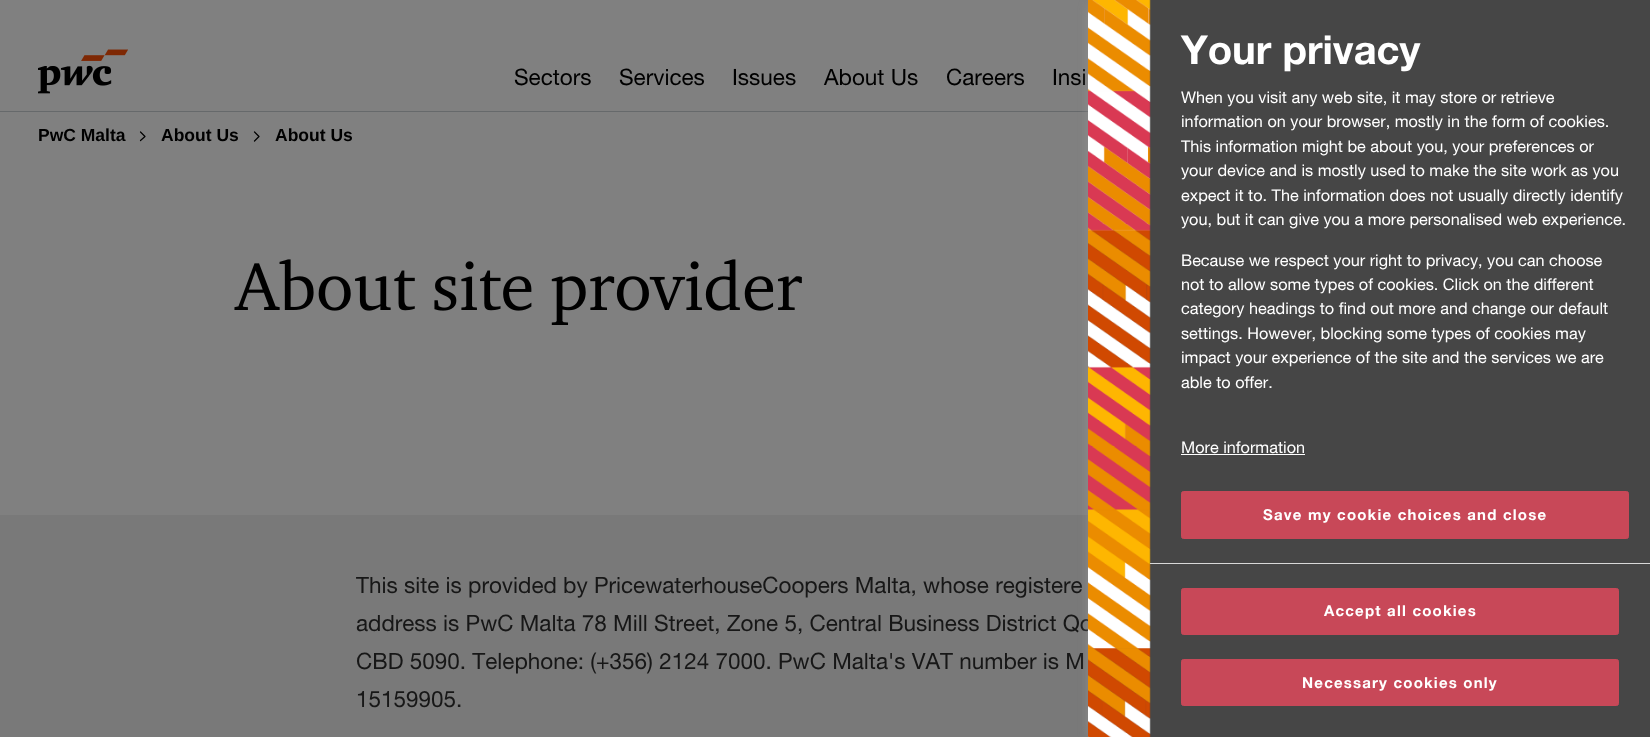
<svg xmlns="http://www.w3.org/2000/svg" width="1650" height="737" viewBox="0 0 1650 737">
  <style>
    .t1 { font: 22.5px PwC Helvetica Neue; fill: #000; }
    .t2 { font: bold 17.5px Liberation Sans; fill: #000; }
    .t3 { font: 22.5px PwC Helvetica Neue; fill: #171717; }
    .t4 { font: bold 40px PwC Helvetica Neue; fill: #fff; }
    .t5 { font: 16.25px PwC Helvetica Neue; fill: #fff; }
    .t6 { font: bold 15px PwC Helvetica Neue; letter-spacing: 1.2px; fill: #fff; }
  </style>
  <rect width="100%" height="100%" fill="#808080"/>
  <rect x="0" y="111" width="1088" height="1" fill="#66696b"/>
  <image x="38" y="49" width="90" height="45" href="images/1.png"/>
  <text x="514" y="85" class="t1">Sectors</text>
  <text x="619" y="85" class="t1">Services</text>
  <text x="732" y="85" class="t1">Issues</text>
  <text x="824" y="85" class="t1">About Us</text>
  <text x="946" y="85" class="t1">Careers</text>
  <text x="1052" y="85" class="t1">Insi</text>
  <text x="38" y="141" class="t2">PwC Malta</text>
  <path d="M140.5 140.5L145 136.5L140.5 132" fill="none" stroke="#000" stroke-width="1.2" stroke-linecap="round" stroke-linejoin="round"/>
  <text x="161" y="141" class="t2">About Us</text>
  <path d="M254.5 141L259 136.5L254.5 132" fill="none" stroke="#000" stroke-width="1.2" stroke-linecap="round" stroke-linejoin="round"/>
  <text x="275" y="141" class="t2">About Us</text>
  <image x="234" y="259" width="568" height="66" href="images/2.png"/>
  <rect x="0" y="515" width="1088" height="222" fill="#797979"/>
  <text x="356" y="593" class="t3">This site is provided by PricewaterhouseCoopers Malta, whose registere</text>
  <text x="356" y="631" class="t3">address is PwC Malta 78 Mill Street, Zone 5, Central Business District Qo</text>
  <text x="356" y="669" class="t3">CBD 5090. Telephone: (+356) 2124 7000. PwC Malta's VAT number is M</text>
  <text x="356" y="707" class="t3">15159905.</text>
  <rect x="1091" y="6" width="555" height="730" fill="#999" filter="blur(6px)"/>
  <rect x="1088" y="0" width="562" height="737" fill="#464646"/>
  <image x="1088" y="0" width="63" height="737" href="images/3.png"/>
  <text x="1181" y="64" class="t4">Your privacy</text>
  <text x="1181" y="103" class="t5">When you visit any web site, it may store or retrieve</text>
  <text x="1181" y="127" class="t5">information on your browser, mostly in the form of cookies.</text>
  <text x="1181" y="152" class="t5">This information might be about you, your preferences or</text>
  <text x="1181" y="176" class="t5">your device and is mostly used to make the site work as you</text>
  <text x="1181" y="201" class="t5">expect it to. The information does not usually directly identify</text>
  <text x="1181" y="225" class="t5">you, but it can give you a more personalised web experience.</text>
  <text x="1181" y="266" class="t5">Because we respect your right to privacy, you can choose</text>
  <text x="1181" y="290" class="t5">not to allow some types of cookies. Click on the different</text>
  <text x="1181" y="314" class="t5">category headings to find out more and change our default</text>
  <text x="1181" y="339" class="t5">settings. However, blocking some types of cookies may</text>
  <text x="1181" y="363" class="t5">impact your experience of the site and the services we are</text>
  <text x="1181" y="388" class="t5">able to offer.</text>
  <text x="1181" y="453" class="t5">More information</text>
  <rect x="1181" y="454" width="124" height="1" fill="#fff"/>
  <rect x="1181.5" y="491.5" width="447" height="47" rx="2" fill="#c84858" stroke="#c84858"/>
  <text x="1263" y="520" class="t6">Save my cookie choices and close</text>
  <rect x="1150" y="563" width="500" height="1" fill="#d8d8d8"/>
  <rect x="1181.5" y="588.5" width="437" height="46" rx="2" fill="#c84858" stroke="#c84858"/>
  <text x="1324" y="616" class="t6">Accept all cookies</text>
  <rect x="1181.5" y="659.5" width="437" height="46" rx="2" fill="#c84858" stroke="#c84858"/>
  <text x="1302" y="688" class="t6">Necessary cookies only</text>
</svg>
